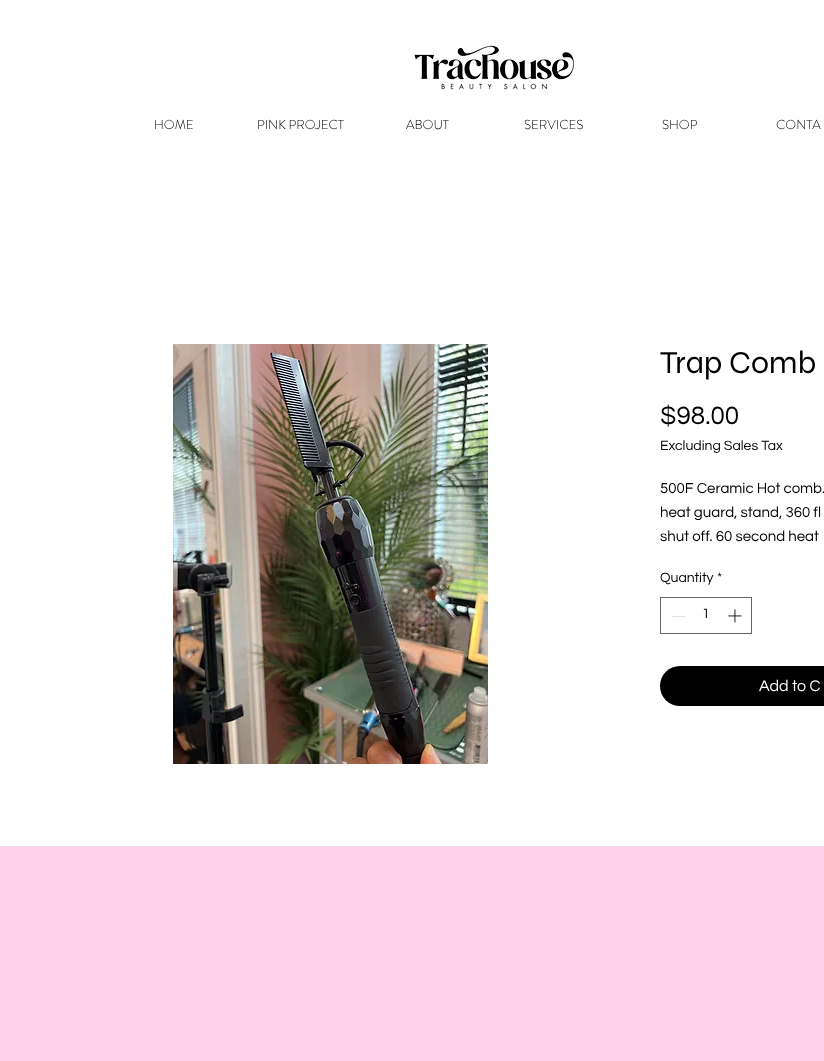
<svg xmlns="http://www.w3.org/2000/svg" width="824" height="1061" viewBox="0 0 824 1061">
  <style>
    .t1 { font: 300 13px 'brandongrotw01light'; fill: #000; }
    .t2 { font: 32px Syne; fill: #000; }
    .t3 { font: 26px Questrial; fill: #000; }
    .t4 { font: 14px Questrial; fill: #000; }
    .t5 { font: 15px Questrial; fill: #000; }
    .t6 { font: 16px Questrial; fill: #fff; }
  </style>
  <rect width="100%" height="100%" fill="#ffd1ea"/>
  <rect x="0" y="0" width="824" height="846" fill="#fff"/>
  <image x="414" y="45" width="160" height="45" href="images/1.png"/>
  <text x="154" y="129" class="t1">HOME</text>
  <text x="257" y="129" class="t1">PINK PROJECT</text>
  <text x="406" y="129" class="t1">ABOUT</text>
  <text x="524" y="129" class="t1">SERVICES</text>
  <text x="662" y="129" class="t1">SHOP</text>
  <text x="776" y="129" class="t1">CONTA</text>
  <image x="173" y="344" width="315" height="420" href="images/2.png"/>
  <text x="660" y="373" class="t2">Trap Comb</text>
  <text x="660" y="424" class="t3">$98.00</text>
  <text x="660" y="450" class="t4">Excluding Sales Tax</text>
  <text x="660" y="493" class="t5">500F Ceramic Hot comb.</text>
  <text x="660" y="517" class="t5">heat guard, stand, 360 fl</text>
  <text x="660" y="541" class="t5">shut off. 60 second heat</text>
  <text x="660" y="582" class="t4">Quantity</text>
  <text x="717" y="582" class="t4">*</text>
  <rect x="660.5" y="597.5" width="91" height="36" fill="none" stroke="#666"/>
  <rect x="672" y="616" width="13" height="1" fill="#e3e3e3"/>
  <text x="702" y="618" class="t4">1</text>
  <image x="728" y="609" width="14" height="14" href="images/3.png"/>
  <rect x="660" y="666" width="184" height="40" rx="20" fill="#000"/>
  <text x="759" y="691" class="t6">Add to C</text>
</svg>
